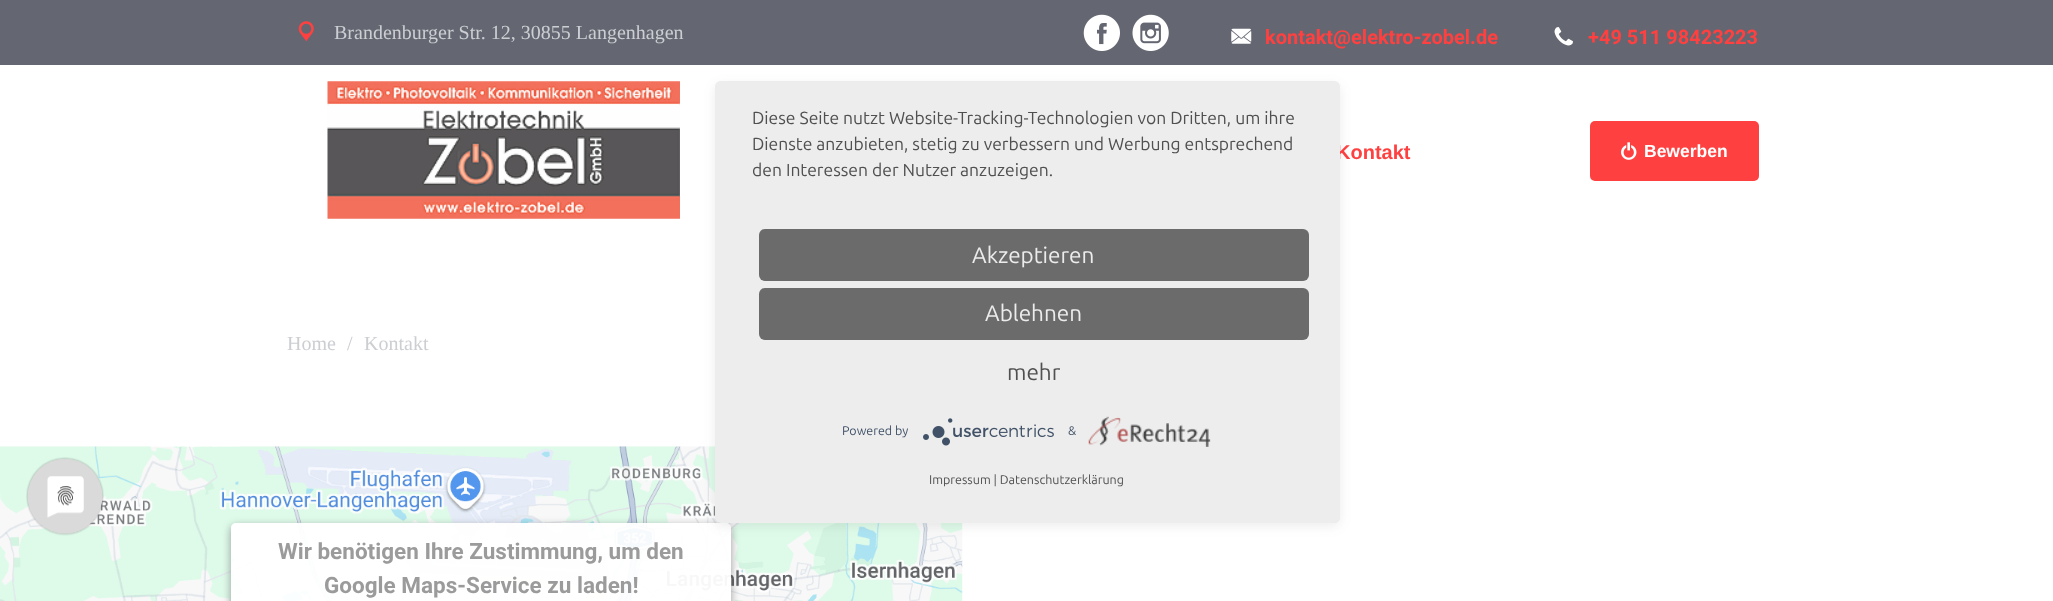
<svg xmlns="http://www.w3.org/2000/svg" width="2053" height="601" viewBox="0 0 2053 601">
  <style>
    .t1 { font: 20px Liberation Serif; fill: #ccced2; }
    .t2 { font: bold 20px Roboto; fill: #ff4040; }
    .t3 { font: bold 20px Liberation Sans; fill: #ff4040; }
    .t4 { font: bold 17.5px Liberation Sans; fill: #fff; }
    .t5 { font: bold 22.5px Roboto; fill: #9b9b9b; }
    .t6 { font: 17.5px Ubuntu; fill: #505050; }
    .t7 { font: 22.5px Ubuntu; fill: #ececec; }
    .t8 { font: 22.5px Ubuntu; fill: #505050; }
    .t9 { font: 12.5px Ubuntu; fill: #415268; }
    .t10 { font: 12.5px Ubuntu; fill: #505050; }
  </style>
  <defs>
    <clipPath id="clip1"><path d="M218 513H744V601H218ZM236 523H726C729 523 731 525 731 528V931C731 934 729 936 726 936H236C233 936 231 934 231 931V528C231 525 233 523 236 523Z" clip-rule="evenodd"/></clipPath>
    <clipPath id="clip2"><rect x="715" y="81" width="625" height="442" rx="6"/></clipPath>
    <clipPath id="clip3"><rect x="753" y="106" width="550" height="104"/></clipPath>
  </defs>
  <rect width="100%" height="100%" fill="#fff"/>
  <rect x="0" y="0" width="2053" height="65" fill="#646771"/>
  <image x="298" y="21" width="16" height="21" href="images/1.png"/>
  <text x="334" y="39" class="t1">Brandenburger Str. 12, 30855 Langenhagen</text>
  <image x="1083" y="14" width="37" height="37" href="images/2.png"/>
  <image x="1132" y="14" width="37" height="37" href="images/3.png"/>
  <image x="1231" y="28" width="21" height="16" href="images/4.png"/>
  <text x="1265" y="44" class="t2">kontakt@elektro-zobel.de</text>
  <image x="1554" y="27" width="19" height="19" href="images/5.png"/>
  <text x="1588" y="44" class="t2">+49 511 98423223</text>
  <image x="327" y="81" width="353" height="138" href="images/6.png"/>
  <text x="1336" y="159" class="t3">Kontakt</text>
  <rect x="1590" y="121" width="169" height="60" rx="5" fill="#ff4040"/>
  <image x="1621" y="142" width="16" height="18" href="images/7.png"/>
  <text x="1644" y="157" class="t4">Bewerben</text>
  <text x="287" y="350" class="t1">Home</text>
  <text x="347" y="350" class="t1">/</text>
  <text x="364" y="350" class="t1">Kontakt</text>
  <image x="0" y="446" width="963" height="155" href="images/8.png"/>
  <g clip-path="url(#clip1)">
    <rect x="231" y="526" width="500" height="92" rx="5" fill="#40404080" filter="blur(4px)"/>
  </g>
  <rect x="231" y="523" width="500" height="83" rx="5" fill="#fffffff2"/>
  <text x="278" y="559" class="t5">Wir benötigen Ihre Zustimmung, um den</text>
  <text x="324" y="593" class="t5">Google Maps-Service zu laden!</text>
  <rect x="715" y="85" width="625" height="441" rx="6" fill="#4040401a" filter="blur(6px)"/>
  <g clip-path="url(#clip2)">
    <rect x="715" y="89" width="625" height="441" fill="#4040404d" filter="blur(22.5px)"/>
  </g>
  <rect x="715" y="81" width="625" height="442" rx="6" fill="#ededed"/>
  <text x="752" y="124" class="t6">Diese Seite nutzt Website-Tracking-Technologien von Dritten, um ihre</text>
  <text x="752" y="150" class="t6">Dienste anzubieten, stetig zu verbessern und Werbung entsprechend</text>
  <g clip-path="url(#clip3)">
    <text x="752" y="176" class="t6">den Interessen der Nutzer anzuzeigen.</text>
  </g>
  <rect x="759" y="229" width="550" height="52" rx="6" fill="#6b6b6b"/>
  <text x="972" y="263" class="t7">Akzeptieren</text>
  <rect x="759" y="288" width="550" height="52" rx="6" fill="#6b6b6b"/>
  <text x="985" y="321" class="t7">Ablehnen</text>
  <text x="1007" y="380" class="t8">mehr</text>
  <text x="842" y="435" class="t9">Powered by</text>
  <image x="923" y="418" width="131" height="28" href="images/9.png"/>
  <text x="1068" y="435" class="t9">&amp;</text>
  <image x="1088" y="416" width="123" height="31" href="images/10.png"/>
  <text x="929" y="484" class="t10">Impressum | Datenschutzerklärung</text>
  <image x="26" y="457" width="78" height="79" href="images/11.png"/>
</svg>
